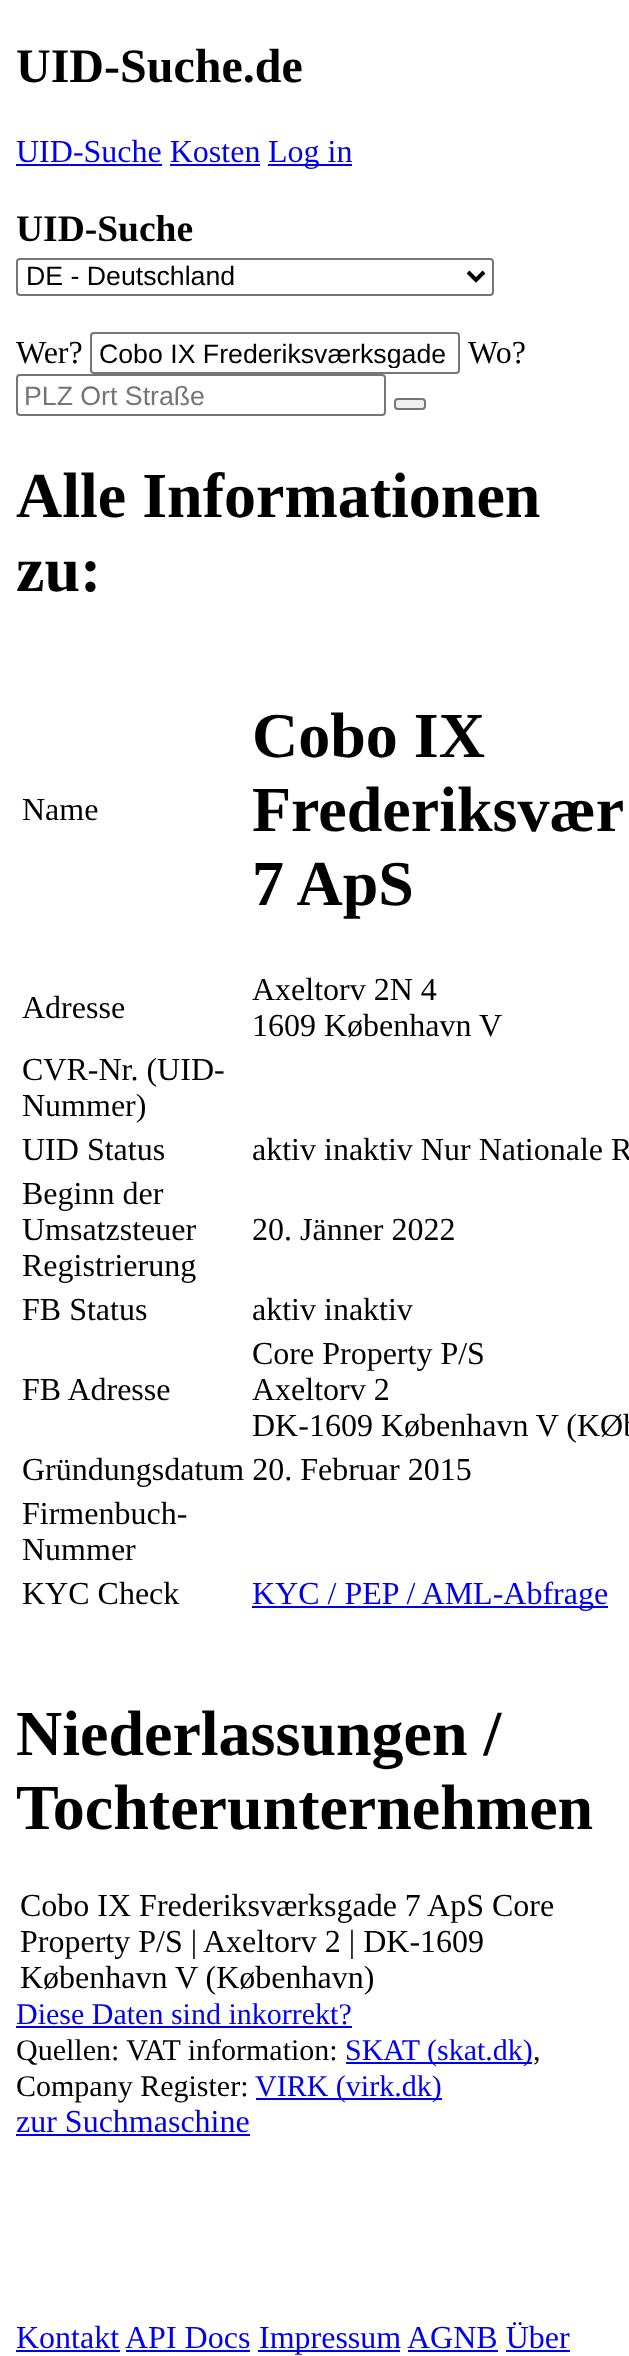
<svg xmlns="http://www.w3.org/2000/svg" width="629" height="2356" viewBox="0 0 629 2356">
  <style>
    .t1 { font: bold 48px Liberation Serif; fill: #000; }
    .t2 { font: 32px Liberation Serif; fill: #00e; }
    .t3 { font: bold 37.5px Liberation Serif; fill: #000; }
    .t4 { font: 26.7px Liberation Sans; fill: #000; }
    .t5 { font: 32px Liberation Serif; fill: #000; }
    .t6 { font: 26.7px Liberation Sans; fill: #757575; }
    .t7 { font: bold 64px Liberation Serif; fill: #000; }
    .t8 { font: 30px Liberation Serif; fill: #00e; }
    .t9 { font: 30px Liberation Serif; fill: #000; }
  </style>
  <defs>
    <clipPath id="clip1"><rect x="98" y="338" width="354" height="30"/></clipPath>
  </defs>
  <rect width="100%" height="100%" fill="#fff"/>
  <text x="16" y="82" class="t1">UID-Suche.de</text>
  <text x="16" y="162" class="t2">UID-Suche Kosten</text>
  <rect x="16" y="164" width="146" height="2" fill="#00e"/>
  <rect x="268" y="164" width="84" height="2" fill="#00e"/>
  <text x="268" y="162" class="t2">Log in</text>
  <rect x="170" y="164" width="90" height="2" fill="#00e"/>
  <text x="16" y="241" class="t3">UID-Suche</text>
  <rect x="17" y="259" width="476" height="36" rx="3" fill="none" stroke="#767676" stroke-width="2"/>
  <path d="M468 272L476 280L484 272" fill="none" stroke="#000" stroke-width="4"/>
  <text x="26" y="285" class="t4">DE - Deutschland</text>
  <text x="16" y="363" class="t5">Wer?</text>
  <rect x="91" y="333" width="368" height="40" rx="3" fill="none" stroke="#767676" stroke-width="2"/>
  <g clip-path="url(#clip1)">
    <text x="99" y="363" class="t4">Cobo IX Frederiksværksgade</text>
  </g>
  <text x="468" y="363" class="t5">Wo?</text>
  <rect x="17" y="375" width="368" height="40" rx="3" fill="none" stroke="#767676" stroke-width="2"/>
  <text x="24" y="405" class="t6">PLZ Ort Straße</text>
  <rect x="395" y="399" width="30" height="10" rx="3" fill="#efefef" stroke="#767676" stroke-width="2"/>
  <text x="16" y="517" class="t7">Alle Informationen</text>
  <text x="16" y="591" class="t7">zu:</text>
  <text x="22" y="820" class="t5">Name</text>
  <text x="252" y="757" class="t7">Cobo IX</text>
  <text x="252" y="831" class="t7">Frederiksvær</text>
  <text x="252" y="905" class="t7">7 ApS</text>
  <text x="22" y="1018" class="t5">Adresse</text>
  <text x="252" y="1000" class="t5">Axeltorv 2N 4</text>
  <text x="252" y="1036" class="t5">1609 København V</text>
  <text x="22" y="1080" class="t5">CVR-Nr. (UID-</text>
  <text x="22" y="1116" class="t5">Nummer)</text>
  <text x="22" y="1160" class="t5">UID Status</text>
  <text x="252" y="1160" class="t5">aktiv inaktiv Nur Nationale R</text>
  <text x="22" y="1204" class="t5">Beginn der</text>
  <text x="22" y="1240" class="t5">Umsatzsteuer</text>
  <text x="22" y="1276" class="t5">Registrierung</text>
  <text x="252" y="1240" class="t5">20. Jänner 2022</text>
  <text x="22" y="1320" class="t5">FB Status</text>
  <text x="252" y="1320" class="t5">aktiv inaktiv</text>
  <text x="22" y="1400" class="t5">FB Adresse</text>
  <text x="252" y="1364" class="t5">Core Property P/S</text>
  <text x="252" y="1400" class="t5">Axeltorv 2</text>
  <text x="252" y="1436" class="t5">DK-1609 København V (KØb</text>
  <text x="22" y="1480" class="t5">Gründungsdatum 20. Februar 2015</text>
  <text x="22" y="1524" class="t5">Firmenbuch-</text>
  <text x="22" y="1560" class="t5">Nummer</text>
  <text x="22" y="1604" class="t5">KYC Check</text>
  <rect x="252" y="1606" width="356" height="2" fill="#00e"/>
  <text x="252" y="1604" class="t2">KYC / PEP / AML-Abfrage</text>
  <text x="16" y="1755" class="t7">Niederlassungen /</text>
  <text x="16" y="1829" class="t7">Tochterunternehmen</text>
  <text x="20" y="1916" class="t5">Cobo IX Frederiksværksgade 7 ApS Core</text>
  <text x="20" y="1952" class="t5">Property P/S |</text>
  <text x="203" y="1952" class="t5">Axeltorv 2 | DK-1609</text>
  <text x="20" y="1988" class="t5">København V (København)</text>
  <text x="16" y="2024" class="t8">Diese Daten sind inkorrekt?</text>
  <rect x="16" y="2026" width="336" height="2" fill="#00e"/>
  <text x="16" y="2060" class="t9">Quellen: VAT information:</text>
  <rect x="346" y="2062" width="186" height="2" fill="#00e"/>
  <text x="345" y="2060" class="t8">SKAT (skat.dk)</text>
  <text x="533" y="2060" class="t9">,</text>
  <text x="16" y="2096" class="t9">Company Register:</text>
  <rect x="256" y="2098" width="186" height="2" fill="#00e"/>
  <text x="255" y="2096" class="t8">VIRK (virk.dk)</text>
  <text x="16" y="2132" class="t2">zur Suchmaschine</text>
  <rect x="16" y="2134" width="234" height="2" fill="#00e"/>
  <text x="16" y="2348" class="t2">Kontakt</text>
  <rect x="16" y="2350" width="104" height="2" fill="#00e"/>
  <text x="125" y="2348" class="t2">API Docs</text>
  <rect x="126" y="2350" width="124" height="2" fill="#00e"/>
  <rect x="258" y="2350" width="142" height="2" fill="#00e"/>
  <text x="259" y="2348" class="t2">Impressum</text>
  <text x="407" y="2348" class="t2">AGNB Über</text>
  <rect x="408" y="2350" width="90" height="2" fill="#00e"/>
  <rect x="506" y="2350" width="64" height="2" fill="#00e"/>
</svg>
